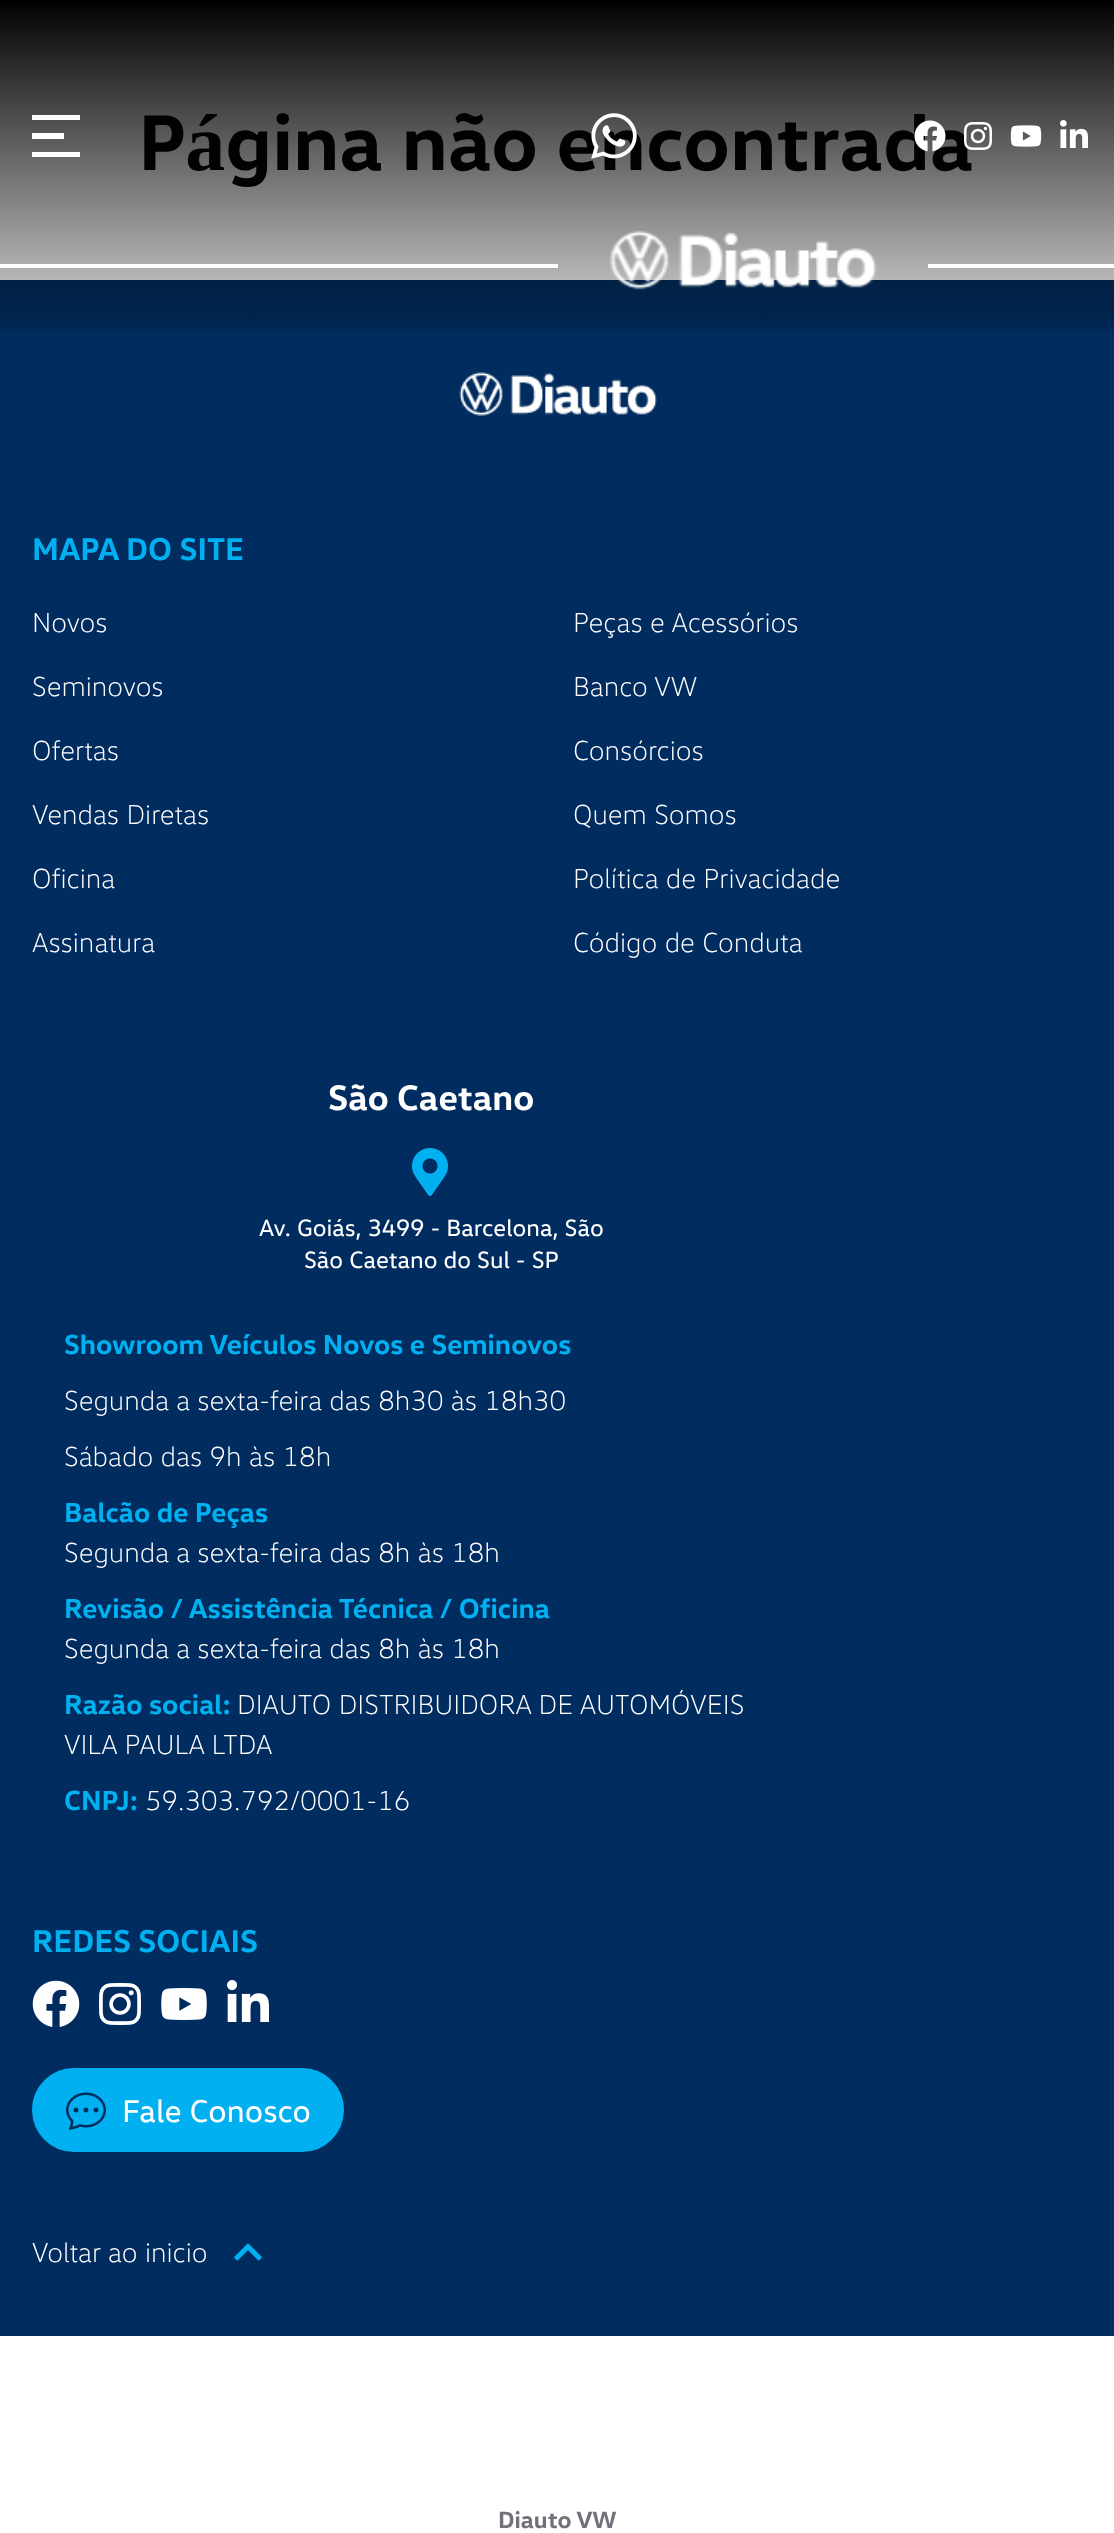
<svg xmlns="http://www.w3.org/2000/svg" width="1114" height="2533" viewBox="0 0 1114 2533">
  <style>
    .t1 { font: bold 80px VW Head; fill: #000; }
    .t2 { font: bold 32px VW Head; fill: #00b0f0; }
    .t3 { font: 300 28px VW Head; fill: #fff; }
    .t4 { font: bold 36px VW Head; fill: #fff; }
    .t5 { font: 24px VW Head; fill: #fff; }
    .t6 { font: bold 28px VW Head; fill: #00b0f0; }
    .t7 { font: 32px VW Head; fill: #fff; }
    .t8 { font: bold 24px VW Head; fill: #71717a; }
  </style>
  <defs>
    <linearGradient id="g1" gradientUnits="userSpaceOnUse" x1="557" y1="0" x2="557" y2="336"><stop offset="0" stop-color="#000"/><stop offset="0.95" stop-color="#050505" stop-opacity="0.19"/><stop offset="1" stop-color="#050505" stop-opacity="0"/></linearGradient>
  </defs>
  <rect width="100%" height="100%" fill="#fff"/>
  <text x="138" y="170" class="t1">Página não encontrada</text>
  <rect x="0" y="280" width="1114" height="2056" fill="#002c5f"/>
  <rect x="0" y="0" width="1114" height="334" fill="url(#g1)"/>
  <path d="M32 115H80V120H32ZM32 133H64V139H32ZM32 152H80V157H32Z" fill="#fff"/>
  <image x="591" y="113" width="46" height="46" href="images/1.png"/>
  <image x="914" y="120" width="32" height="32" href="images/2.png"/>
  <image x="964" y="122" width="28" height="28" href="images/3.png"/>
  <image x="1010" y="125" width="32" height="22" href="images/4.png"/>
  <image x="1060" y="120" width="28" height="28" href="images/5.png"/>
  <rect x="0" y="264" width="558" height="4" fill="#fff"/>
  <image x="609" y="230" width="268" height="60" href="images/6.png"/>
  <rect x="928" y="264" width="186" height="4" fill="#fff"/>
  <image x="459" y="372" width="198" height="44" href="images/7.png"/>
  <text x="32" y="560" class="t2">MAPA DO SITE</text>
  <text x="32" y="632" class="t3">Novos</text>
  <text x="573" y="632" class="t3">Peças e Acessórios</text>
  <text x="32" y="696" class="t3">Seminovos</text>
  <text x="573" y="696" class="t3">Banco VW</text>
  <text x="32" y="760" class="t3">Ofertas</text>
  <text x="573" y="760" class="t3">Consórcios</text>
  <text x="32" y="824" class="t3">Vendas Diretas</text>
  <text x="573" y="824" class="t3">Quem Somos</text>
  <text x="32" y="888" class="t3">Oficina</text>
  <text x="573" y="888" class="t3">Política de Privacidade</text>
  <text x="32" y="952" class="t3">Assinatura</text>
  <text x="573" y="952" class="t3">Código de Conduta</text>
  <text x="328" y="1110" class="t4">São Caetano</text>
  <image x="412" y="1148" width="36" height="48" href="images/8.png"/>
  <text x="259" y="1236" class="t5">Av. Goiás, 3499 - Barcelona, São</text>
  <text x="304" y="1268" class="t5">São Caetano do Sul - SP</text>
  <text x="64" y="1354" class="t6">Showroom Veículos Novos e Seminovos</text>
  <text x="64" y="1410" class="t3">Segunda a sexta-feira das 8h30 às 18h30</text>
  <text x="64" y="1466" class="t3">Sábado das 9h às 18h</text>
  <text x="64" y="1522" class="t6">Balcão de Peças</text>
  <text x="64" y="1562" class="t3">Segunda a sexta-feira das 8h às 18h</text>
  <text x="64" y="1618" class="t6">Revisão / Assistência Técnica / Oficina</text>
  <text x="64" y="1658" class="t3">Segunda a sexta-feira das 8h às 18h</text>
  <text x="64" y="1714" class="t6">Razão social:</text>
  <text x="237" y="1714" class="t3">DIAUTO DISTRIBUIDORA DE AUTOMÓVEIS</text>
  <text x="64" y="1754" class="t3">VILA PAULA LTDA</text>
  <text x="64" y="1810" class="t6">CNPJ:</text>
  <text x="145" y="1810" class="t3">59.303.792/0001-16</text>
  <text x="32" y="1952" class="t2">REDES SOCIAIS</text>
  <image x="32" y="1980" width="48" height="47" href="images/9.png"/>
  <image x="99" y="1983" width="42" height="42" href="images/10.png"/>
  <image x="161" y="1988" width="46" height="32" href="images/11.png"/>
  <image x="227" y="1980" width="42" height="42" href="images/12.png"/>
  <rect x="33" y="2069" width="310" height="82" rx="41" fill="#00b0f0" stroke="#00b0f0" stroke-width="2"/>
  <image x="66" y="2092" width="40" height="38" href="images/13.png"/>
  <text x="122" y="2122" class="t7">Fale Conosco</text>
  <text x="32" y="2262" class="t3">Voltar ao inicio</text>
  <image x="234" y="2243" width="28" height="18" href="images/14.png"/>
  <text x="498" y="2528" class="t8">Diauto VW</text>
</svg>
